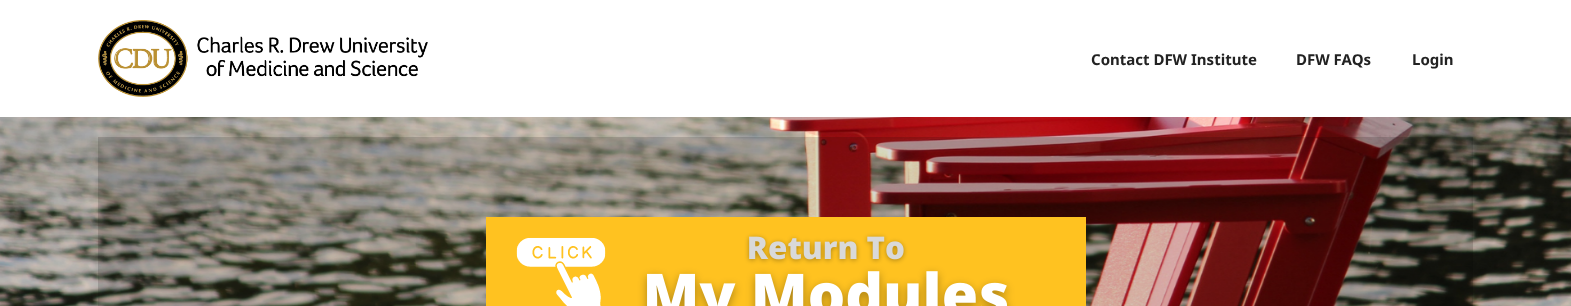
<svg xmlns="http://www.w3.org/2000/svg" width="1571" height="306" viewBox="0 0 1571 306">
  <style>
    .t1 { font: bold 15px Noto Sans; fill: #222; }
  </style>
  <rect width="100%" height="100%" fill="#fff"/>
  <image x="0" y="117" width="1571" height="189" href="images/1.png"/>
  <image x="98" y="20" width="330" height="77" href="images/2.png"/>
  <text x="1091" y="65" class="t1">Contact DFW Institute</text>
  <text x="1296" y="65" class="t1">DFW FAQs</text>
  <text x="1412" y="65" class="t1">Login</text>
  <rect x="98" y="137" width="1375" height="169" fill="#00000026"/>
  <image x="486" y="217" width="600" height="89" href="images/3.png"/>
</svg>
